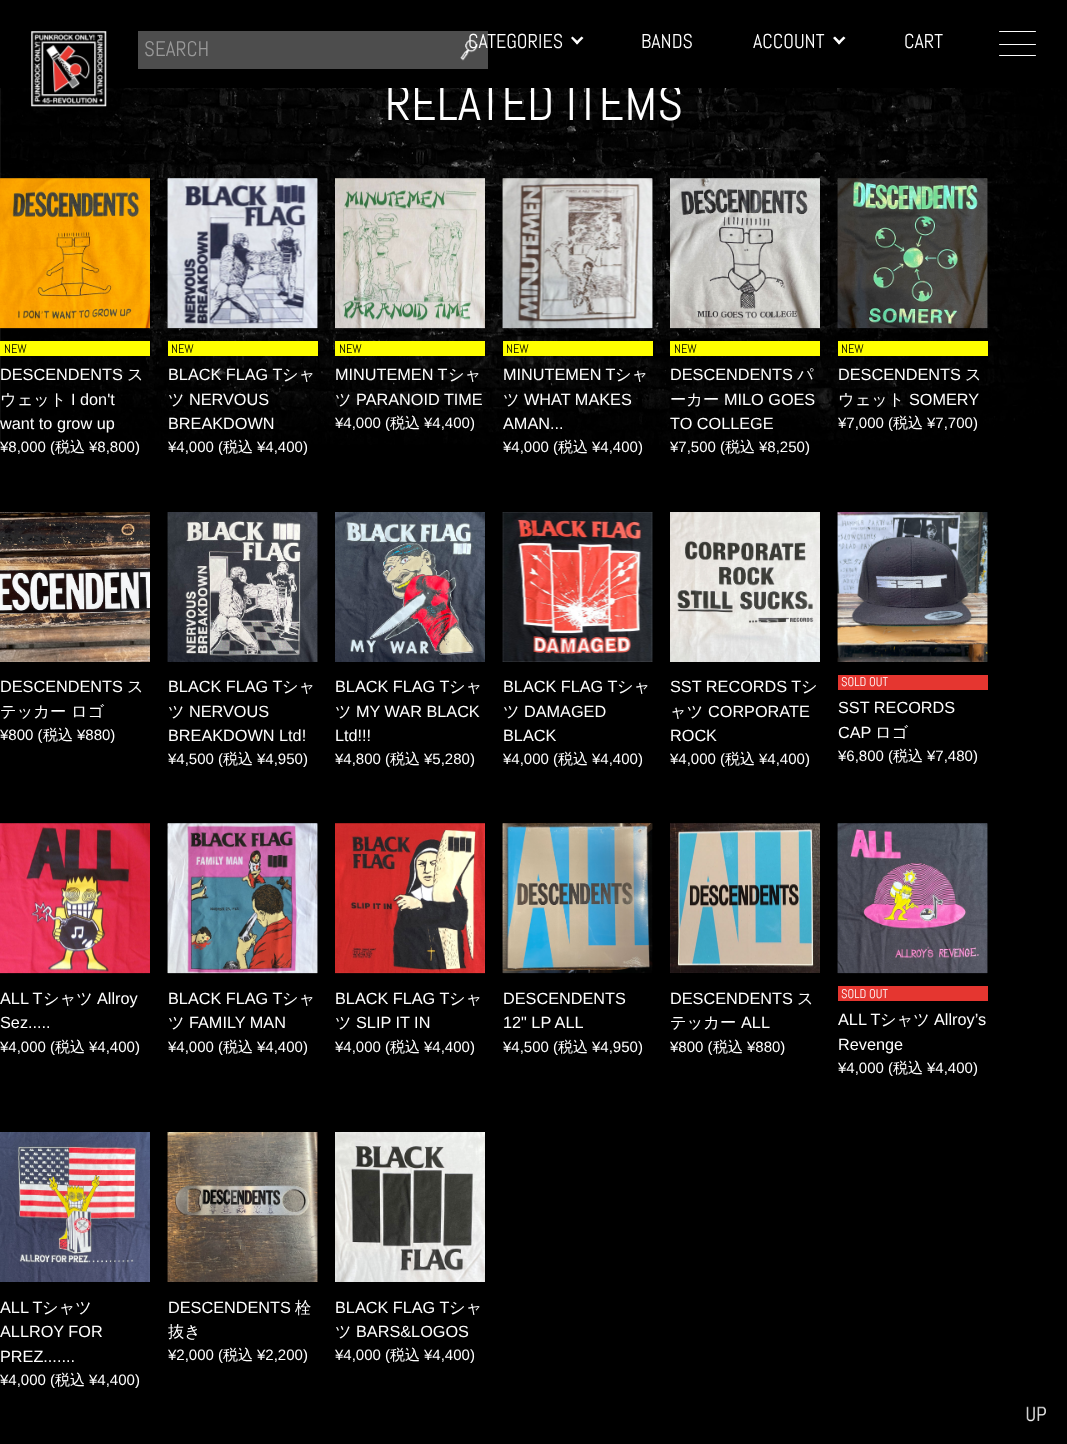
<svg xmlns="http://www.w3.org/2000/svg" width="1067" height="1444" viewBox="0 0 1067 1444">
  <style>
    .t1 { font: 50px Abel; fill: #fff; }
    .t2 { font: 21px Abel; fill: #999; }
    .t3 { font: 20px Abel; fill: #fff; }
    .t4 { font: 12.5px Abel; fill: #000; }
    .t5 { font: 16.25px Liberation Sans; fill: #fff; }
    .t6 { font: 500 16.25px WenQuanYi Zen Hei; fill: #fff; }
    .t7 { font: 15px Liberation Sans; fill: #fff; }
    .t8 { font: 500 15px WenQuanYi Zen Hei; fill: #fff; }
    .t9 { font: 12.5px Abel; fill: #fff; }
  </style>
  <rect width="100%" height="100%" fill="#000"/>
  <image x="0" y="88" width="1067" height="357" href="images/1.png"/>
  <text x="385" y="120" class="t1">RELATED ITEMS</text>
  <rect x="388" y="84" width="290" height="4" fill="#000"/>
  <image x="31" y="31" width="76" height="76" href="images/2.png"/>
  <rect x="138" y="31" width="350" height="38" fill="#4d4d4d"/>
  <image x="460" y="39" width="18" height="22" href="images/3.png"/>
  <text x="144" y="56" class="t2">SEARCH</text>
  <text x="468" y="48" class="t3">CATEGORIES</text>
  <path d="M581.5 36.5L583.5 38L577 44.5L575.5 42.5Z" fill="#fff"/>
  <path d="M572.5 36.5L579 42.5L577 44.5L571 38Z" fill="#fff"/>
  <text x="641" y="48" class="t3">BANDS</text>
  <text x="753" y="48" class="t3">ACCOUNT</text>
  <path d="M843.5 36.5L845.5 38L839 44.5L837.5 42.5Z" fill="#fff"/>
  <path d="M835 36.5L841 42.5L839 44.5L833 38Z" fill="#fff"/>
  <text x="904" y="48" class="t3">CART</text>
  <rect x="999" y="31" width="37" height="1" rx="0.5" fill="#fff"/>
  <rect x="999" y="44" width="37" height="1" rx="0.5" fill="#fff"/>
  <rect x="999" y="55" width="37" height="1" rx="0.5" fill="#fff"/>
  <image x="0" y="178" width="150" height="151" href="images/4.png"/>
  <image x="0" y="178" width="150" height="151" href="images/5.png"/>
  <rect x="0" y="341" width="150" height="15" fill="#ff0"/>
  <text x="4" y="353" class="t4">NEW</text>
  <text x="0" y="380" class="t5">DESCENDENTS</text>
  <text x="127" y="380" class="t6">ス</text>
  <text x="0" y="405" class="t6">ウェット</text>
  <text x="71" y="405" class="t5">I don't</text>
  <text x="0" y="429" class="t5">want to grow up</text>
  <text x="0" y="452" class="t7">¥8,000 (</text>
  <text x="55" y="452" class="t8">税込</text>
  <text x="89" y="452" class="t7">¥8,800)</text>
  <image x="167" y="178" width="151" height="151" href="images/6.png"/>
  <image x="167" y="178" width="151" height="151" href="images/7.png"/>
  <rect x="168" y="341" width="150" height="15" fill="#ff0"/>
  <text x="171" y="353" class="t4">NEW</text>
  <text x="168" y="380" class="t5">BLACK FLAG T</text>
  <text x="282" y="380" class="t6">シャ</text>
  <text x="168" y="405" class="t6">ツ</text>
  <text x="189" y="405" class="t5">NERVOUS</text>
  <text x="168" y="429" class="t5">BREAKDOWN</text>
  <text x="168" y="452" class="t7">¥4,000 (</text>
  <text x="223" y="452" class="t8">税込</text>
  <text x="257" y="452" class="t7">¥4,400)</text>
  <image x="335" y="178" width="150" height="151" href="images/8.png"/>
  <image x="335" y="178" width="150" height="151" href="images/9.png"/>
  <rect x="335" y="341" width="150" height="15" fill="#ff0"/>
  <text x="339" y="353" class="t4">NEW</text>
  <text x="335" y="380" class="t5">MINUTEMEN T</text>
  <text x="448" y="380" class="t6">シャ</text>
  <text x="335" y="405" class="t6">ツ</text>
  <text x="356" y="405" class="t5">PARANOID TIME</text>
  <text x="335" y="428" class="t7">¥4,000 (</text>
  <text x="390" y="428" class="t8">税込</text>
  <text x="424" y="428" class="t7">¥4,400)</text>
  <image x="502" y="178" width="151" height="151" href="images/10.png"/>
  <image x="502" y="178" width="151" height="151" href="images/11.png"/>
  <rect x="503" y="341" width="150" height="15" fill="#ff0"/>
  <text x="506" y="353" class="t4">NEW</text>
  <text x="503" y="380" class="t5">MINUTEMEN T</text>
  <text x="615" y="380" class="t6">シャ</text>
  <text x="503" y="405" class="t6">ツ</text>
  <text x="524" y="405" class="t5">WHAT MAKES</text>
  <text x="503" y="429" class="t5">AMAN...</text>
  <text x="503" y="452" class="t7">¥4,000 (</text>
  <text x="558" y="452" class="t8">税込</text>
  <text x="592" y="452" class="t7">¥4,400)</text>
  <image x="670" y="178" width="150" height="151" href="images/12.png"/>
  <image x="670" y="178" width="150" height="151" href="images/13.png"/>
  <rect x="670" y="341" width="150" height="15" fill="#ff0"/>
  <text x="674" y="353" class="t4">NEW</text>
  <text x="670" y="380" class="t5">DESCENDENTS</text>
  <text x="797" y="380" class="t6">パ</text>
  <text x="670" y="405" class="t6">ーカー</text>
  <text x="724" y="405" class="t5">MILO GOES</text>
  <text x="670" y="429" class="t5">TO COLLEGE</text>
  <text x="670" y="452" class="t7">¥7,500 (</text>
  <text x="725" y="452" class="t8">税込</text>
  <text x="759" y="452" class="t7">¥8,250)</text>
  <image x="837" y="178" width="151" height="151" href="images/14.png"/>
  <image x="837" y="178" width="151" height="151" href="images/15.png"/>
  <rect x="838" y="341" width="150" height="15" fill="#ff0"/>
  <text x="841" y="353" class="t4">NEW</text>
  <text x="838" y="380" class="t5">DESCENDENTS</text>
  <text x="965" y="380" class="t6">ス</text>
  <text x="838" y="405" class="t6">ウェット</text>
  <text x="909" y="405" class="t5">SOMERY</text>
  <text x="838" y="428" class="t7">¥7,000 (</text>
  <text x="893" y="428" class="t8">税込</text>
  <text x="927" y="428" class="t7">¥7,700)</text>
  <image x="0" y="512" width="150" height="150" href="images/16.png"/>
  <text x="0" y="692" class="t5">DESCENDENTS</text>
  <text x="127" y="692" class="t6">ス</text>
  <text x="0" y="717" class="t6">テッカー ロゴ</text>
  <text x="0" y="740" class="t7">¥800 (</text>
  <text x="43" y="740" class="t8">税込</text>
  <text x="77" y="740" class="t7">¥880)</text>
  <image x="167" y="512" width="151" height="150" href="images/17.png"/>
  <image x="167" y="512" width="151" height="150" href="images/18.png"/>
  <text x="168" y="692" class="t5">BLACK FLAG T</text>
  <text x="282" y="692" class="t6">シャ</text>
  <text x="168" y="717" class="t6">ツ</text>
  <text x="189" y="717" class="t5">NERVOUS</text>
  <text x="168" y="741" class="t5">BREAKDOWN Ltd!</text>
  <text x="168" y="764" class="t7">¥4,500 (</text>
  <text x="223" y="764" class="t8">税込</text>
  <text x="257" y="764" class="t7">¥4,950)</text>
  <image x="335" y="512" width="150" height="150" href="images/19.png"/>
  <text x="335" y="692" class="t5">BLACK FLAG T</text>
  <text x="449" y="692" class="t6">シャ</text>
  <text x="335" y="717" class="t6">ツ</text>
  <text x="356" y="717" class="t5">MY WAR BLACK</text>
  <text x="335" y="741" class="t5">Ltd!!!</text>
  <text x="335" y="764" class="t7">¥4,800 (</text>
  <text x="390" y="764" class="t8">税込</text>
  <text x="424" y="764" class="t7">¥5,280)</text>
  <image x="502" y="512" width="151" height="150" href="images/20.png"/>
  <image x="502" y="512" width="151" height="150" href="images/21.png"/>
  <text x="503" y="692" class="t5">BLACK FLAG T</text>
  <text x="617" y="692" class="t6">シャ</text>
  <text x="503" y="717" class="t6">ツ</text>
  <text x="524" y="717" class="t5">DAMAGED</text>
  <text x="503" y="741" class="t5">BLACK</text>
  <text x="503" y="764" class="t7">¥4,000 (</text>
  <text x="558" y="764" class="t8">税込</text>
  <text x="592" y="764" class="t7">¥4,400)</text>
  <image x="670" y="512" width="150" height="150" href="images/22.png"/>
  <text x="670" y="692" class="t5">SST RECORDS T</text>
  <text x="801" y="692" class="t6">シ</text>
  <text x="670" y="717" class="t6">ャツ</text>
  <text x="708" y="717" class="t5">CORPORATE</text>
  <text x="670" y="741" class="t5">ROCK</text>
  <text x="670" y="764" class="t7">¥4,000 (</text>
  <text x="725" y="764" class="t8">税込</text>
  <text x="759" y="764" class="t7">¥4,400)</text>
  <image x="837" y="512" width="151" height="150" href="images/23.png"/>
  <image x="837" y="512" width="151" height="150" href="images/24.png"/>
  <rect x="838" y="675" width="150" height="15" fill="#e53630"/>
  <text x="841" y="686" class="t9">SOLD OUT</text>
  <text x="838" y="713" class="t5">SST RECORDS</text>
  <text x="838" y="738" class="t5">CAP</text>
  <text x="875" y="738" class="t6">ロゴ</text>
  <text x="838" y="761" class="t7">¥6,800 (</text>
  <text x="893" y="761" class="t8">税込</text>
  <text x="927" y="761" class="t7">¥7,480)</text>
  <image x="0" y="823" width="150" height="151" href="images/25.png"/>
  <image x="0" y="823" width="150" height="151" href="images/26.png"/>
  <text x="0" y="1004" class="t5">ALL T</text>
  <text x="43" y="1004" class="t6">シャツ</text>
  <text x="97" y="1004" class="t5">Allroy</text>
  <text x="0" y="1028" class="t5">Sez.....</text>
  <text x="0" y="1052" class="t7">¥4,000 (</text>
  <text x="55" y="1052" class="t8">税込</text>
  <text x="89" y="1052" class="t7">¥4,400)</text>
  <image x="167" y="823" width="151" height="151" href="images/27.png"/>
  <image x="167" y="823" width="151" height="151" href="images/28.png"/>
  <text x="168" y="1004" class="t5">BLACK FLAG T</text>
  <text x="282" y="1004" class="t6">シャ</text>
  <text x="168" y="1028" class="t6">ツ</text>
  <text x="189" y="1028" class="t5">FAMILY MAN</text>
  <text x="168" y="1052" class="t7">¥4,000 (</text>
  <text x="223" y="1052" class="t8">税込</text>
  <text x="257" y="1052" class="t7">¥4,400)</text>
  <image x="335" y="823" width="150" height="151" href="images/29.png"/>
  <image x="335" y="823" width="150" height="151" href="images/30.png"/>
  <text x="335" y="1004" class="t5">BLACK FLAG T</text>
  <text x="449" y="1004" class="t6">シャ</text>
  <text x="335" y="1028" class="t6">ツ</text>
  <text x="356" y="1028" class="t5">SLIP IT IN</text>
  <text x="335" y="1052" class="t7">¥4,000 (</text>
  <text x="390" y="1052" class="t8">税込</text>
  <text x="424" y="1052" class="t7">¥4,400)</text>
  <image x="502" y="823" width="151" height="151" href="images/31.png"/>
  <image x="502" y="823" width="151" height="151" href="images/32.png"/>
  <text x="503" y="1004" class="t5">DESCENDENTS</text>
  <text x="503" y="1028" class="t5">12" LP ALL</text>
  <text x="503" y="1052" class="t7">¥4,500 (</text>
  <text x="558" y="1052" class="t8">税込</text>
  <text x="592" y="1052" class="t7">¥4,950)</text>
  <image x="670" y="823" width="150" height="150" href="images/33.png"/>
  <image x="670" y="823" width="150" height="1" href="images/34.png"/>
  <text x="670" y="1004" class="t5">DESCENDENTS</text>
  <text x="797" y="1004" class="t6">ス</text>
  <text x="670" y="1028" class="t6">テッカー</text>
  <text x="741" y="1028" class="t5">ALL</text>
  <text x="670" y="1052" class="t7">¥800 (</text>
  <text x="713" y="1052" class="t8">税込</text>
  <text x="747" y="1052" class="t7">¥880)</text>
  <image x="837" y="823" width="151" height="151" href="images/35.png"/>
  <image x="837" y="823" width="151" height="151" href="images/36.png"/>
  <rect x="838" y="986" width="150" height="15" fill="#e53630"/>
  <text x="841" y="998" class="t9">SOLD OUT</text>
  <text x="838" y="1025" class="t5">ALL T</text>
  <text x="880" y="1025" class="t6">シャツ</text>
  <text x="934" y="1025" class="t5">Allroy’s</text>
  <text x="838" y="1050" class="t5">Revenge</text>
  <text x="838" y="1073" class="t7">¥4,000 (</text>
  <text x="893" y="1073" class="t8">税込</text>
  <text x="927" y="1073" class="t7">¥4,400)</text>
  <image x="0" y="1132" width="150" height="150" href="images/37.png"/>
  <text x="0" y="1313" class="t5">ALL T</text>
  <text x="42" y="1313" class="t6">シャツ</text>
  <text x="0" y="1337" class="t5">ALLROY FOR</text>
  <text x="0" y="1362" class="t5">PREZ.......</text>
  <text x="0" y="1385" class="t7">¥4,000 (</text>
  <text x="55" y="1385" class="t8">税込</text>
  <text x="89" y="1385" class="t7">¥4,400)</text>
  <image x="167" y="1132" width="151" height="150" href="images/38.png"/>
  <image x="167" y="1132" width="151" height="150" href="images/39.png"/>
  <text x="168" y="1313" class="t5">DESCENDENTS</text>
  <text x="295" y="1313" class="t6">栓</text>
  <text x="168" y="1337" class="t6">抜き</text>
  <text x="168" y="1360" class="t7">¥2,000 (</text>
  <text x="223" y="1360" class="t8">税込</text>
  <text x="257" y="1360" class="t7">¥2,200)</text>
  <image x="335" y="1132" width="150" height="150" href="images/40.png"/>
  <text x="335" y="1313" class="t5">BLACK FLAG T</text>
  <text x="449" y="1313" class="t6">シャ</text>
  <text x="335" y="1337" class="t6">ツ</text>
  <text x="356" y="1337" class="t5">BARS&amp;LOGOS</text>
  <text x="335" y="1360" class="t7">¥4,000 (</text>
  <text x="390" y="1360" class="t8">税込</text>
  <text x="424" y="1360" class="t7">¥4,400)</text>
  <image x="1026" y="1406" width="20" height="16" href="images/41.png"/>
</svg>
